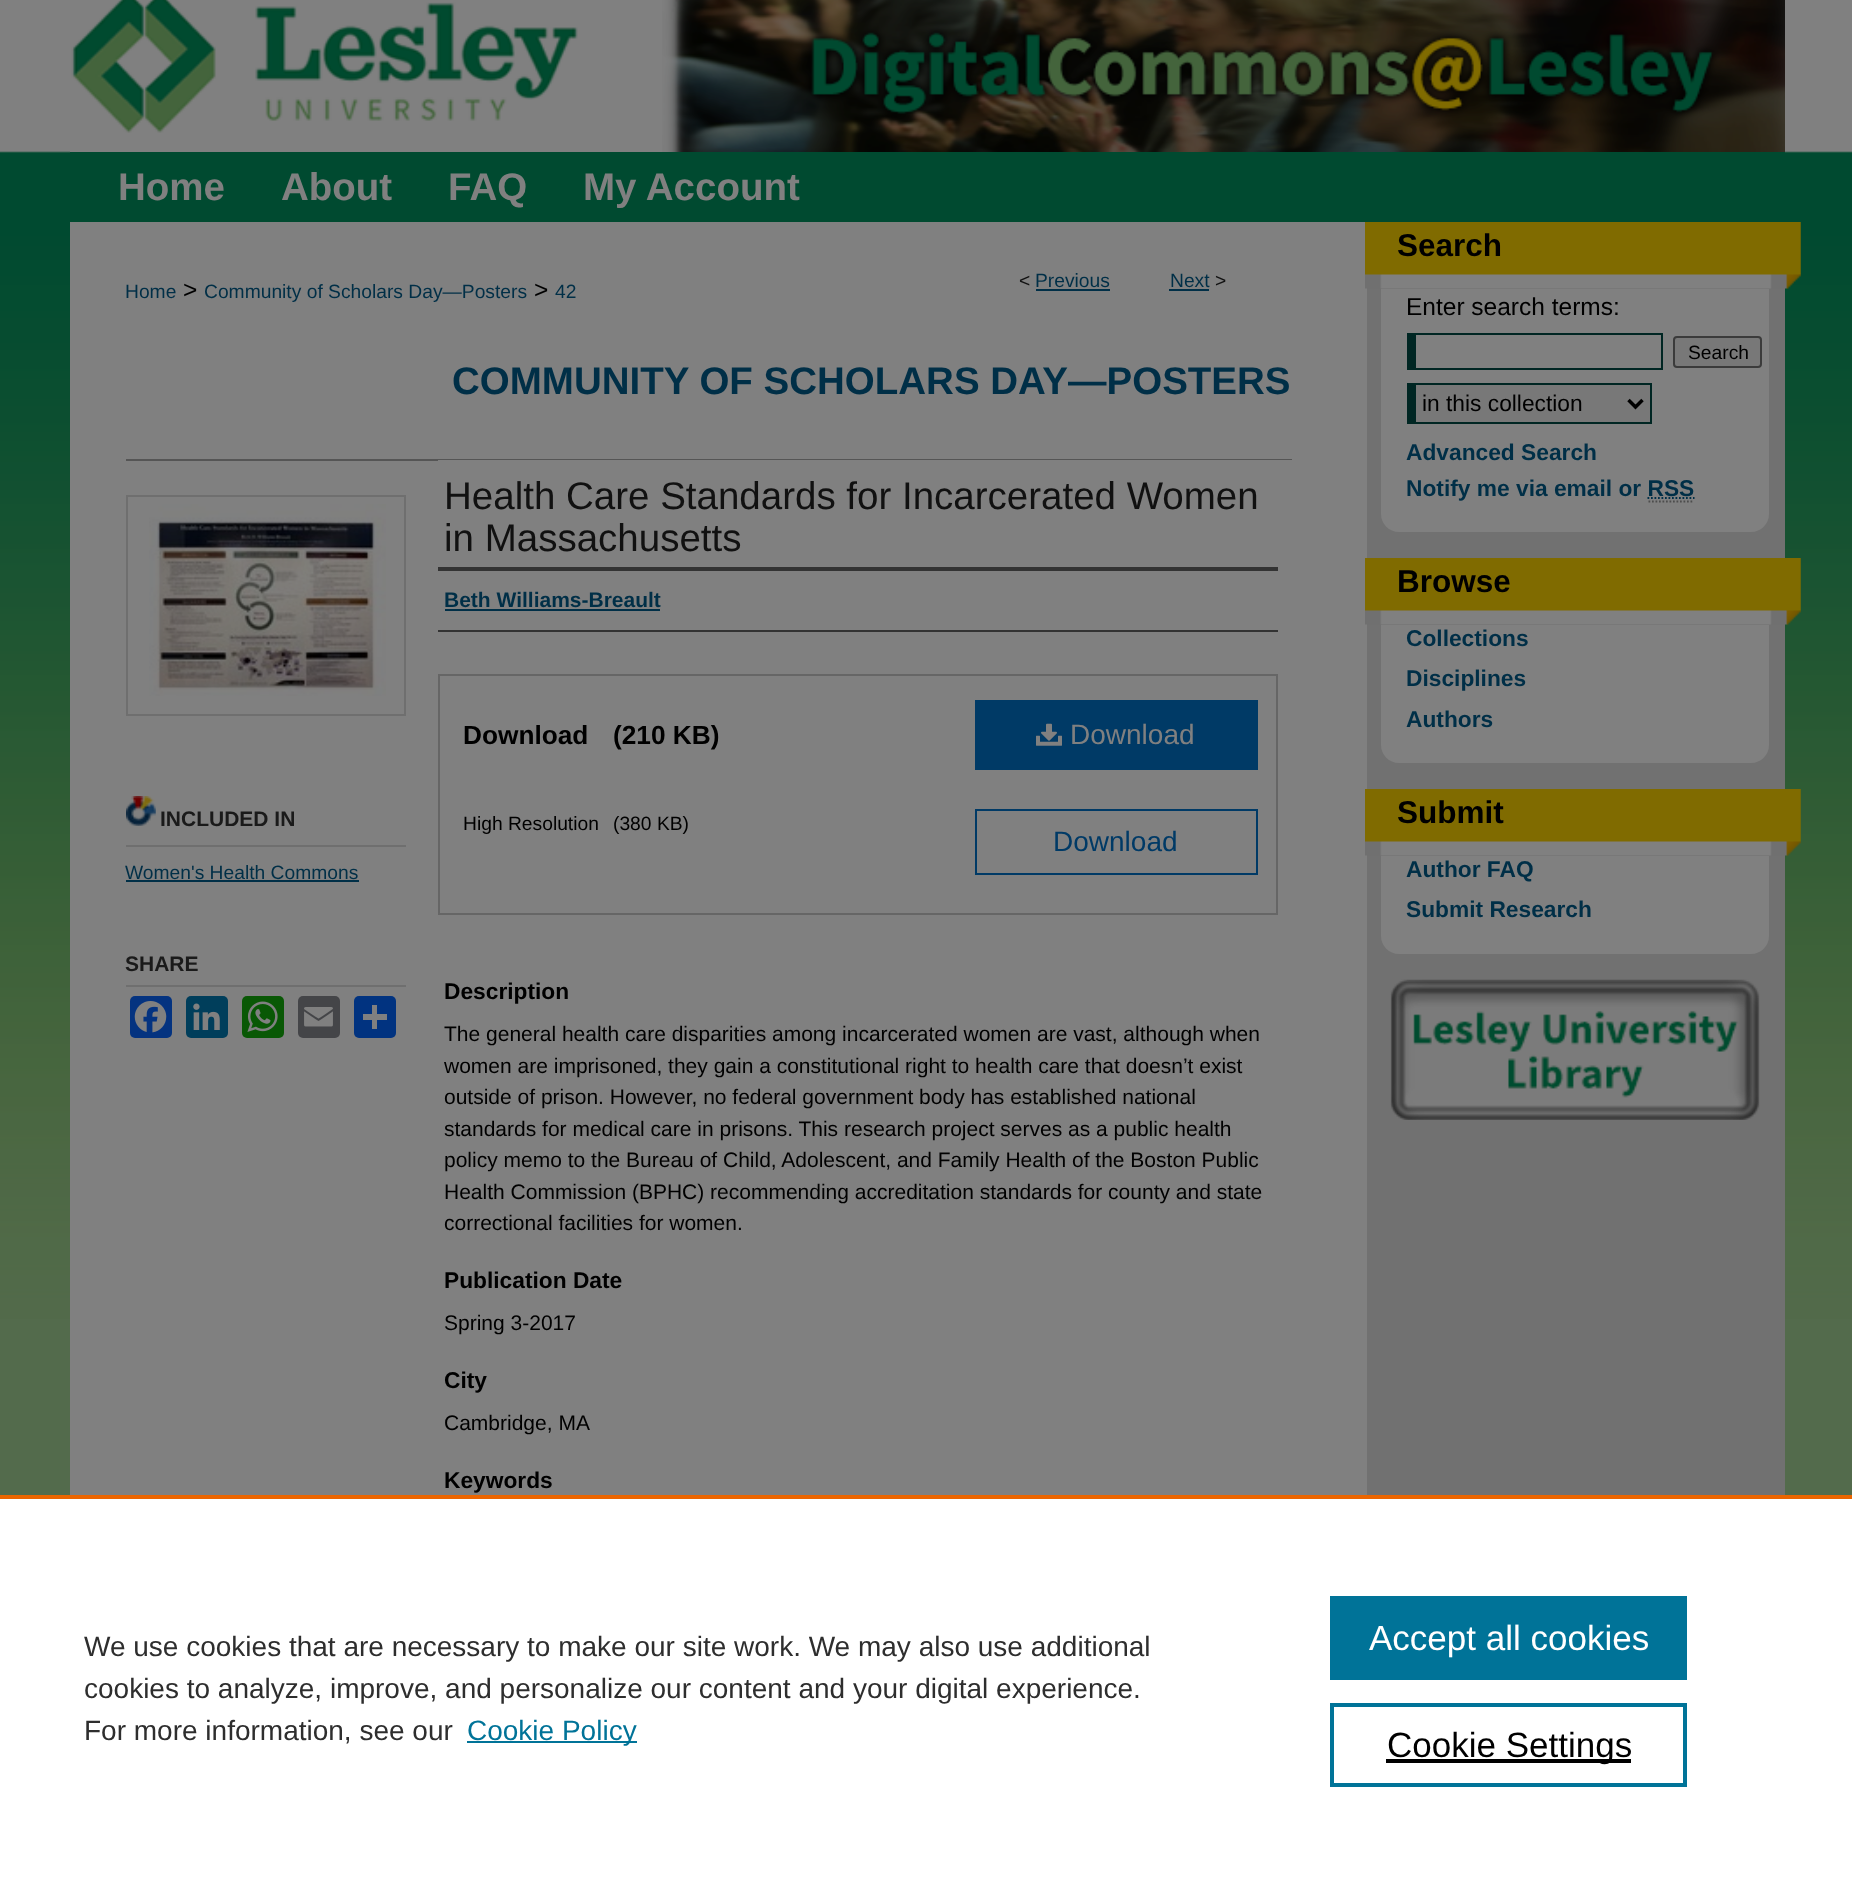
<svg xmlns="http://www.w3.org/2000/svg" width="1852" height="1879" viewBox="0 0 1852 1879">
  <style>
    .t1 { font: bold 38.5px Liberation Sans; fill: #808080; }
    .t2 { font: 19.25px Liberation Sans; fill: #111; }
    .t3 { font: 19.25px Liberation Sans; fill: #002f47; }
    .t4 { font: 24.5px Liberation Sans; fill: #000; }
    .t5 { font: bold 38.5px Liberation Sans; fill: #002f47; }
    .t6 { font: bold 21px Liberation Sans; fill: #1a1a1a; }
    .t7 { font: 38.5px Liberation Sans; fill: #111; }
    .t8 { font: bold 21px Liberation Sans; fill: #002f47; }
    .t9 { font: bold 26.25px Liberation Sans; fill: #000; }
    .t10 { font: 28px Liberation Sans; fill: #808080; }
    .t11 { font: 19.25px Liberation Sans; fill: #000; }
    .t12 { font: 28px Liberation Sans; fill: #003a66; }
    .t13 { font: bold 22.75px Liberation Sans; fill: #000; }
    .t14 { font: 21px Liberation Sans; fill: #000; }
    .t15 { font: bold 31.5px Liberation Sans; fill: #000; }
    .t16 { font: 22.75px Liberation Sans; fill: #000; }
    .t17 { font: bold 22.75px Liberation Sans; fill: #002f47; }
    .t18 { font: 28px Liberation Sans; fill: #2e2e2e; }
    .t19 { font: 28px Liberation Sans; fill: #007398; }
    .t20 { font: 35px Liberation Sans; fill: #fff; }
    .t21 { font: 35px Liberation Sans; fill: #000; }
  </style>
  <rect width="100%" height="100%" fill="#536b4c"/>
  <image x="0" y="0" width="1852" height="1319" href="images/1.png"/>
  <rect x="70" y="151" width="592" height="1" fill="#808080"/>
  <image x="71" y="0" width="507" height="133" href="images/2.png"/>
  <image x="662" y="0" width="1123" height="152" href="images/3.png"/>
  <rect x="70" y="152" width="1715" height="1" fill="#004a30"/>
  <text x="118" y="200" class="t1">Home</text>
  <text x="281" y="200" class="t1">About</text>
  <text x="448" y="200" class="t1">FAQ</text>
  <text x="583" y="200" class="t1">My Account</text>
  <rect x="1367" y="288" width="418" height="1207" fill="#717171"/>
  <rect x="70" y="222" width="1297" height="1273" fill="#808080"/>
  <text x="1019" y="287" class="t2">&lt;</text>
  <text x="1035" y="287" class="t3">Previous</text>
  <rect x="1036" y="289" width="74" height="2" fill="#002f47"/>
  <text x="1170" y="287" class="t3">Next</text>
  <rect x="1169" y="289" width="40" height="2" fill="#002f47"/>
  <text x="1215" y="287" class="t2">&gt;</text>
  <text x="125" y="298" class="t3">Home</text>
  <text x="183" y="298" class="t4">&gt;</text>
  <text x="204" y="298" class="t3">Community of Scholars Day—Posters</text>
  <text x="534" y="298" class="t4">&gt;</text>
  <text x="555" y="298" class="t3">42</text>
  <text x="452" y="394" class="t5">COMMUNITY OF SCHOLARS DAY—POSTERS</text>
  <rect x="127" y="496" width="278" height="219" fill="none" stroke="#6f6f6f" stroke-width="2"/>
  <image x="149" y="504" width="237" height="192" href="images/4.png"/>
  <image x="126" y="796" width="30" height="30" href="images/5.png"/>
  <rect x="126" y="845" width="280" height="2" fill="#6f6f6f"/>
  <text x="160" y="826" class="t6">INCLUDED IN</text>
  <text x="125" y="879" class="t3">Women's Health Commons</text>
  <rect x="126" y="880" width="233" height="2" fill="#002f47"/>
  <rect x="126" y="985" width="280" height="2" fill="#6f6f6f"/>
  <text x="125" y="971" class="t6">SHARE</text>
  <rect x="130" y="996" width="42" height="42" rx="5" fill="#043380"/>
  <image x="134" y="1001" width="33" height="32" href="images/6.png"/>
  <rect x="186" y="996" width="42" height="42" rx="5" fill="#003e5b"/>
  <image x="193" y="1003" width="27" height="27" href="images/7.png"/>
  <rect x="242" y="996" width="42" height="42" rx="5" fill="#095805"/>
  <image x="247" y="1001" width="31" height="31" href="images/8.png"/>
  <rect x="298" y="996" width="42" height="42" rx="5" fill="#444548"/>
  <image x="304" y="1007" width="29" height="20" href="images/9.png"/>
  <rect x="354" y="996" width="42" height="42" rx="5" fill="#013380"/>
  <rect x="372" y="1005" width="5" height="24" fill="#808080"/>
  <rect x="363" y="1014" width="24" height="6" fill="#808080"/>
  <rect x="126" y="459" width="1166" height="2" fill="#555"/>
  <rect x="438" y="460" width="854" height="1" fill="#808080"/>
  <text x="444" y="509" class="t7">Health Care Standards for Incarcerated Women</text>
  <text x="444" y="551" class="t7">in Massachusetts</text>
  <rect x="438" y="567" width="840" height="4" fill="#333"/>
  <rect x="438" y="630" width="840" height="2" fill="#333"/>
  <text x="444" y="607" class="t8">Beth Williams-Breault</text>
  <rect x="445" y="609" width="215" height="2" fill="#002f47"/>
  <rect x="439" y="675" width="838" height="239" fill="none" stroke="#666" stroke-width="2"/>
  <text x="463" y="744" class="t9">Download</text>
  <text x="613" y="744" class="t9">(210 KB)</text>
  <rect x="975" y="700" width="283" height="70" fill="#003a66"/>
  <image x="1036" y="723" width="26" height="23" href="images/10.png"/>
  <text x="1070" y="744" class="t10">Download</text>
  <text x="463" y="830" class="t11">High Resolution</text>
  <text x="613" y="830" class="t11">(380 KB)</text>
  <rect x="976" y="810" width="281" height="64" fill="none" stroke="#003a66" stroke-width="2"/>
  <text x="1053" y="851" class="t12">Download</text>
  <text x="444" y="999" class="t13">Description</text>
  <text x="444" y="1041" class="t14">The general health care disparities among incarcerated women are vast, although when</text>
  <text x="444" y="1073" class="t14">women are imprisoned, they gain a constitutional right to health care that doesn’t exist</text>
  <text x="444" y="1104" class="t14">outside of prison. However, no federal government body has established national</text>
  <text x="444" y="1136" class="t14">standards for medical care in prisons. This research project serves as a public health</text>
  <text x="444" y="1167" class="t14">policy memo to the Bureau of Child, Adolescent, and Family Health of the Boston Public</text>
  <text x="444" y="1199" class="t14">Health Commission (BPHC) recommending accreditation standards for county and state</text>
  <text x="444" y="1230" class="t14">correctional facilities for women.</text>
  <text x="444" y="1288" class="t13">Publication Date</text>
  <text x="444" y="1330" class="t14">Spring 3-2017</text>
  <text x="444" y="1388" class="t13">City</text>
  <text x="444" y="1430" class="t14">Cambridge, MA</text>
  <text x="444" y="1488" class="t13">Keywords</text>
  <image x="1365" y="222" width="436" height="67" href="images/11.png"/>
  <text x="1397" y="256" class="t15">Search</text>
  <rect x="1381" y="289" width="388" height="185" fill="#808080"/>
  <text x="1406" y="315" class="t4">Enter search terms:</text>
  <rect x="1416" y="333" width="247" height="2" fill="#002623"/>
  <rect x="1661" y="333" width="2" height="36" fill="#002623"/>
  <rect x="1407" y="368" width="256" height="2" fill="#002623"/>
  <rect x="1407" y="333" width="9" height="35" fill="#002623"/>
  <rect x="1674" y="337" width="87" height="30" rx="3" fill="#787878" stroke="#3b3b3b" stroke-width="2"/>
  <text x="1688" y="359" class="t11">Search</text>
  <rect x="1416" y="385" width="234" height="37" fill="#787878"/>
  <rect x="1416" y="383" width="236" height="2" fill="#002623"/>
  <rect x="1650" y="383" width="2" height="41" fill="#002623"/>
  <rect x="1416" y="422" width="236" height="2" fill="#002623"/>
  <rect x="1407" y="383" width="9" height="41" fill="#002623"/>
  <path d="M1628.5 400L1635.5 407L1642.5 400" fill="none" stroke="#000" stroke-width="3.5"/>
  <text x="1422" y="411" class="t16">in this collection</text>
  <text x="1406" y="460" class="t17">Advanced Search</text>
  <path d="M1381 474H1769V514C1769 524 1761 532 1751 532H1399C1389 532 1381 524 1381 514Z" fill="#808080"/>
  <text x="1406" y="496" class="t17">Notify me via email or RSS</text>
  <path d="M1647.5 498H1694.5" fill="none" stroke="#002f47" stroke-width="1.8" stroke-dasharray="1.75 1.75"/>
  <path d="M1648.5 501.5H1694" fill="none" stroke="#4d4d4d" stroke-width="1.8" stroke-dasharray="1.75 1.75"/>
  <image x="1365" y="558" width="436" height="67" href="images/12.png"/>
  <text x="1397" y="592" class="t15">Browse</text>
  <path d="M1381 625H1769V745C1769 755 1761 763 1751 763H1399C1389 763 1381 755 1381 745Z" fill="#808080"/>
  <text x="1406" y="646" class="t17">Collections</text>
  <text x="1406" y="686" class="t17">Disciplines</text>
  <text x="1406" y="727" class="t17">Authors</text>
  <image x="1365" y="789" width="436" height="67" href="images/13.png"/>
  <text x="1397" y="823" class="t15">Submit</text>
  <path d="M1381 856H1769V936C1769 946 1761 954 1751 954H1399C1389 954 1381 946 1381 936Z" fill="#808080"/>
  <text x="1406" y="877" class="t17">Author FAQ</text>
  <text x="1406" y="917" class="t17">Submit Research</text>
  <image x="1390" y="979" width="370" height="141" href="images/14.png"/>
  <rect x="0" y="1499" width="1852" height="380" fill="#fff"/>
  <rect x="0" y="1495" width="1852" height="4" fill="#eb6500"/>
  <text x="84" y="1656" class="t18">We use cookies that are necessary to make our site work. We may also use additional</text>
  <text x="84" y="1698" class="t18">cookies to analyze, improve, and personalize our content and your digital experience.</text>
  <text x="84" y="1740" class="t18">For more information, see our</text>
  <rect x="467" y="1741" width="170" height="2" fill="#007398"/>
  <text x="467" y="1740" class="t19">Cookie Policy</text>
  <rect x="1330" y="1596" width="357" height="84" fill="#007398"/>
  <text x="1369" y="1650" class="t20">Accept all cookies</text>
  <rect x="1332" y="1705" width="353" height="80" fill="none" stroke="#007398" stroke-width="4"/>
  <rect x="1386" y="1759" width="245" height="4" fill="#000"/>
  <text x="1387" y="1757" class="t21">Cookie Settings</text>
</svg>
